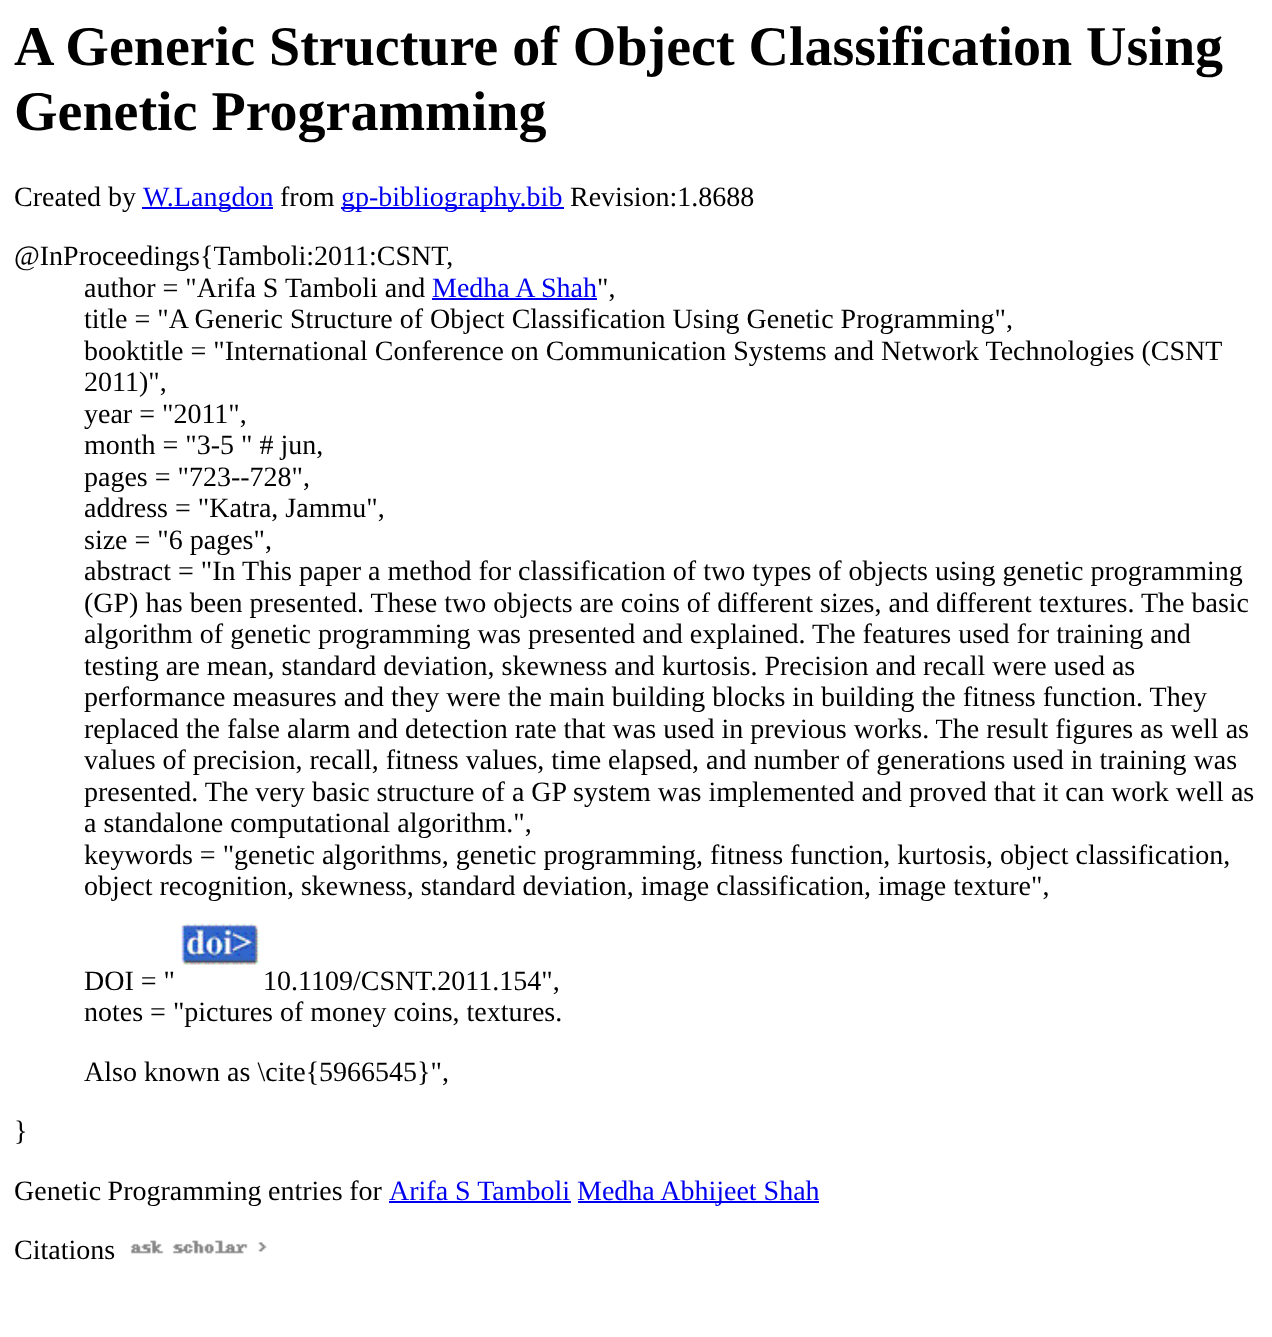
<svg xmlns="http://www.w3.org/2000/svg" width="1272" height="1337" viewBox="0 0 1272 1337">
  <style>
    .t1 { font: bold 56px Liberation Serif; fill: #000; }
    .t2 { font: 28px Liberation Serif; fill: #000; }
    .t3 { font: 28px Liberation Serif; fill: #00e; }
  </style>
  <rect width="100%" height="100%" fill="#fff"/>
  <text x="14" y="65" class="t1">A Generic Structure of Object Classification Using</text>
  <text x="14" y="130" class="t1">Genetic Programming</text>
  <text x="14" y="206" class="t2">Created by</text>
  <rect x="142" y="207" width="131" height="2" fill="#00e"/>
  <text x="143" y="206" class="t3">W.Langdon</text>
  <text x="280" y="206" class="t2">from</text>
  <rect x="341" y="207" width="223" height="2" fill="#00e"/>
  <text x="341" y="206" class="t3">gp-bibliography.bib</text>
  <text x="570" y="206" class="t2">Revision:1.8688</text>
  <text x="14" y="265" class="t2">@InProceedings{Tamboli:2011:CSNT,</text>
  <text x="84" y="297" class="t2">author = "Arifa S Tamboli and</text>
  <text x="432" y="297" class="t3">Medha A Shah</text>
  <rect x="432" y="298" width="165" height="2" fill="#00e"/>
  <text x="597" y="297" class="t2">",</text>
  <text x="84" y="328" class="t2">title = "A Generic Structure of Object Classification Using Genetic Programming",</text>
  <text x="84" y="360" class="t2">booktitle = "International Conference on Communication Systems and Network Technologies (CSNT</text>
  <text x="84" y="391" class="t2">2011)",</text>
  <text x="84" y="423" class="t2">year = "2011",</text>
  <text x="84" y="454" class="t2">month = "3-5 " # jun,</text>
  <text x="84" y="486" class="t2">pages = "723--728",</text>
  <text x="84" y="517" class="t2">address = "Katra, Jammu",</text>
  <text x="84" y="549" class="t2">size = "6 pages",</text>
  <text x="84" y="580" class="t2">abstract = "In This paper a method for classification of two types of objects using genetic programming</text>
  <text x="84" y="612" class="t2">(GP) has been presented. These two objects are coins of different sizes, and different textures. The basic</text>
  <text x="84" y="643" class="t2">algorithm of genetic programming was presented and explained. The features used for training and</text>
  <text x="84" y="675" class="t2">testing are mean, standard deviation, skewness and kurtosis. Precision and recall were used as</text>
  <text x="84" y="706" class="t2">performance measures and they were the main building blocks in building the fitness function. They</text>
  <text x="84" y="738" class="t2">replaced the false alarm and detection rate that was used in previous works. The result figures as well as</text>
  <text x="84" y="769" class="t2">values of precision, recall, fitness values, time elapsed, and number of generations used in training was</text>
  <text x="84" y="801" class="t2">presented. The very basic structure of a GP system was implemented and proved that it can work well as</text>
  <text x="84" y="832" class="t2">a standalone computational algorithm.",</text>
  <text x="84" y="864" class="t2">keywords = "genetic algorithms, genetic programming, fitness function, kurtosis, object classification,</text>
  <text x="84" y="895" class="t2">object recognition, skewness, standard deviation, image classification, image texture",</text>
  <image x="181" y="923" width="79" height="42" href="images/1.png"/>
  <text x="84" y="990" class="t2">DOI = "</text>
  <text x="263" y="990" class="t2">10.1109/CSNT.2011.154",</text>
  <text x="84" y="1021" class="t2">notes = "pictures of money coins, textures.</text>
  <text x="84" y="1081" class="t2">Also known as \cite{5966545}",</text>
  <text x="14" y="1140" class="t2">}</text>
  <text x="14" y="1200" word-spacing="-0.5" class="t2">Genetic Programming entries for</text>
  <text x="389" y="1200" class="t3">Arifa S Tamboli</text>
  <rect x="389" y="1201" width="182" height="2" fill="#00e"/>
  <rect x="578" y="1201" width="241" height="2" fill="#00e"/>
  <text x="577" y="1200" class="t3">Medha Abhijeet Shah</text>
  <text x="14" y="1259" class="t2">Citations</text>
  <image x="130" y="1240" width="137" height="14" href="images/2.png"/>
</svg>
